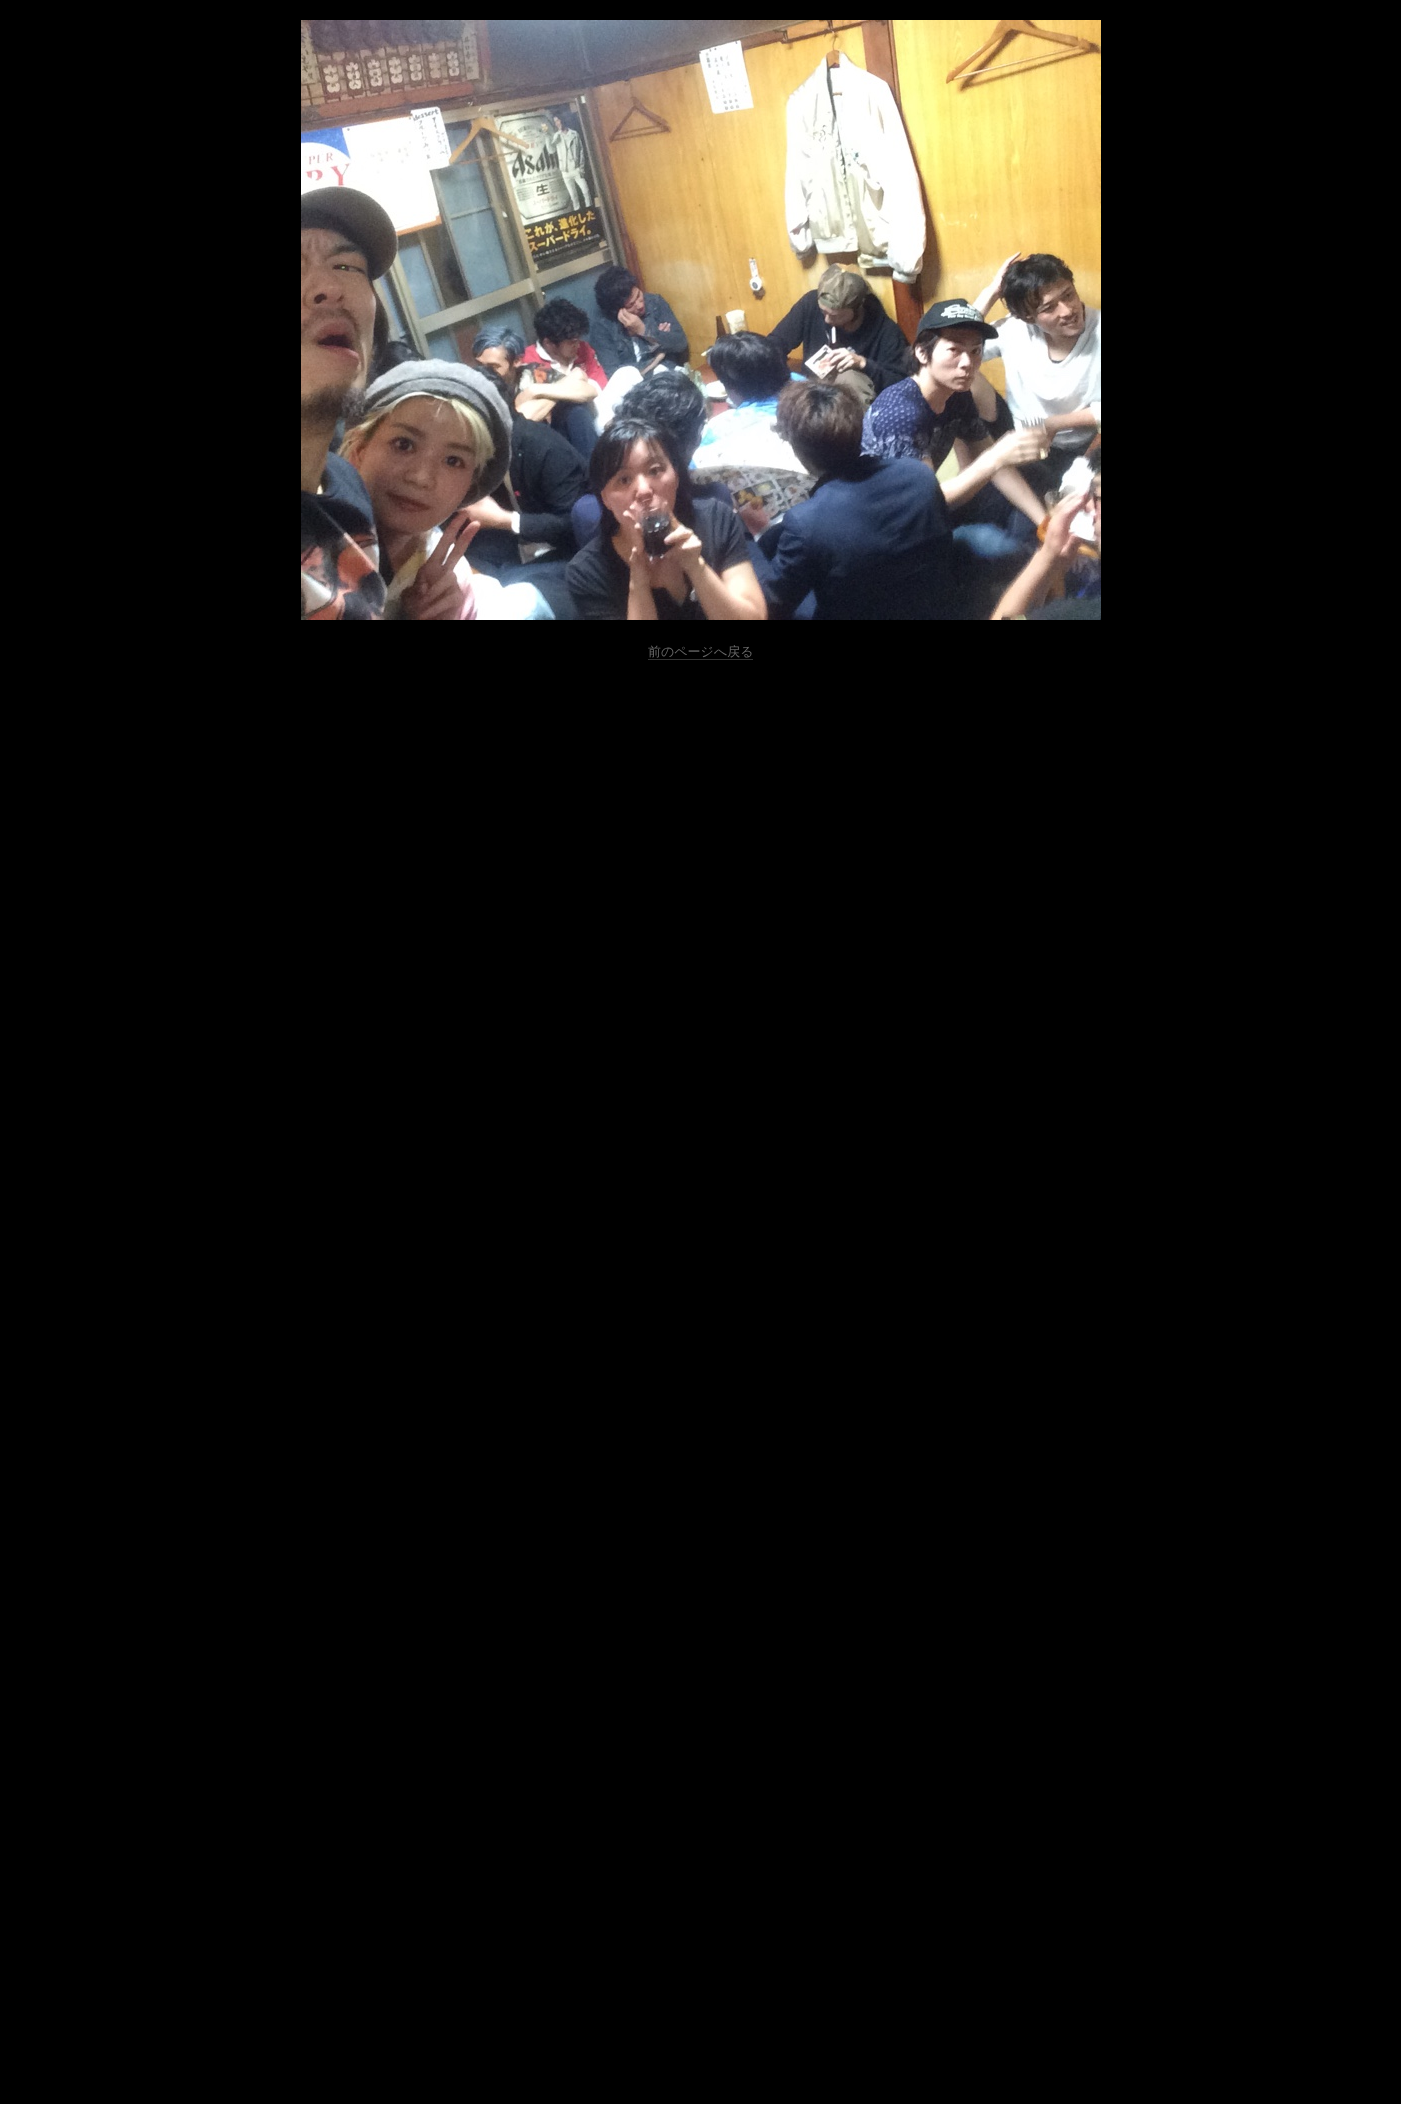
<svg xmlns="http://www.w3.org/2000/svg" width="1401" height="2104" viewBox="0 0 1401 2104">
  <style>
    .t1 { font: 500 13px WenQuanYi Zen Hei; fill: #666; }
  </style>
  <rect width="100%" height="100%" fill="#000"/>
  <image x="301" y="20" width="800" height="600" href="images/1.png"/>
  <text x="648" y="656" class="t1">前のページへ戻る</text>
  <rect x="648" y="659" width="105" height="1" fill="#333"/>
</svg>
